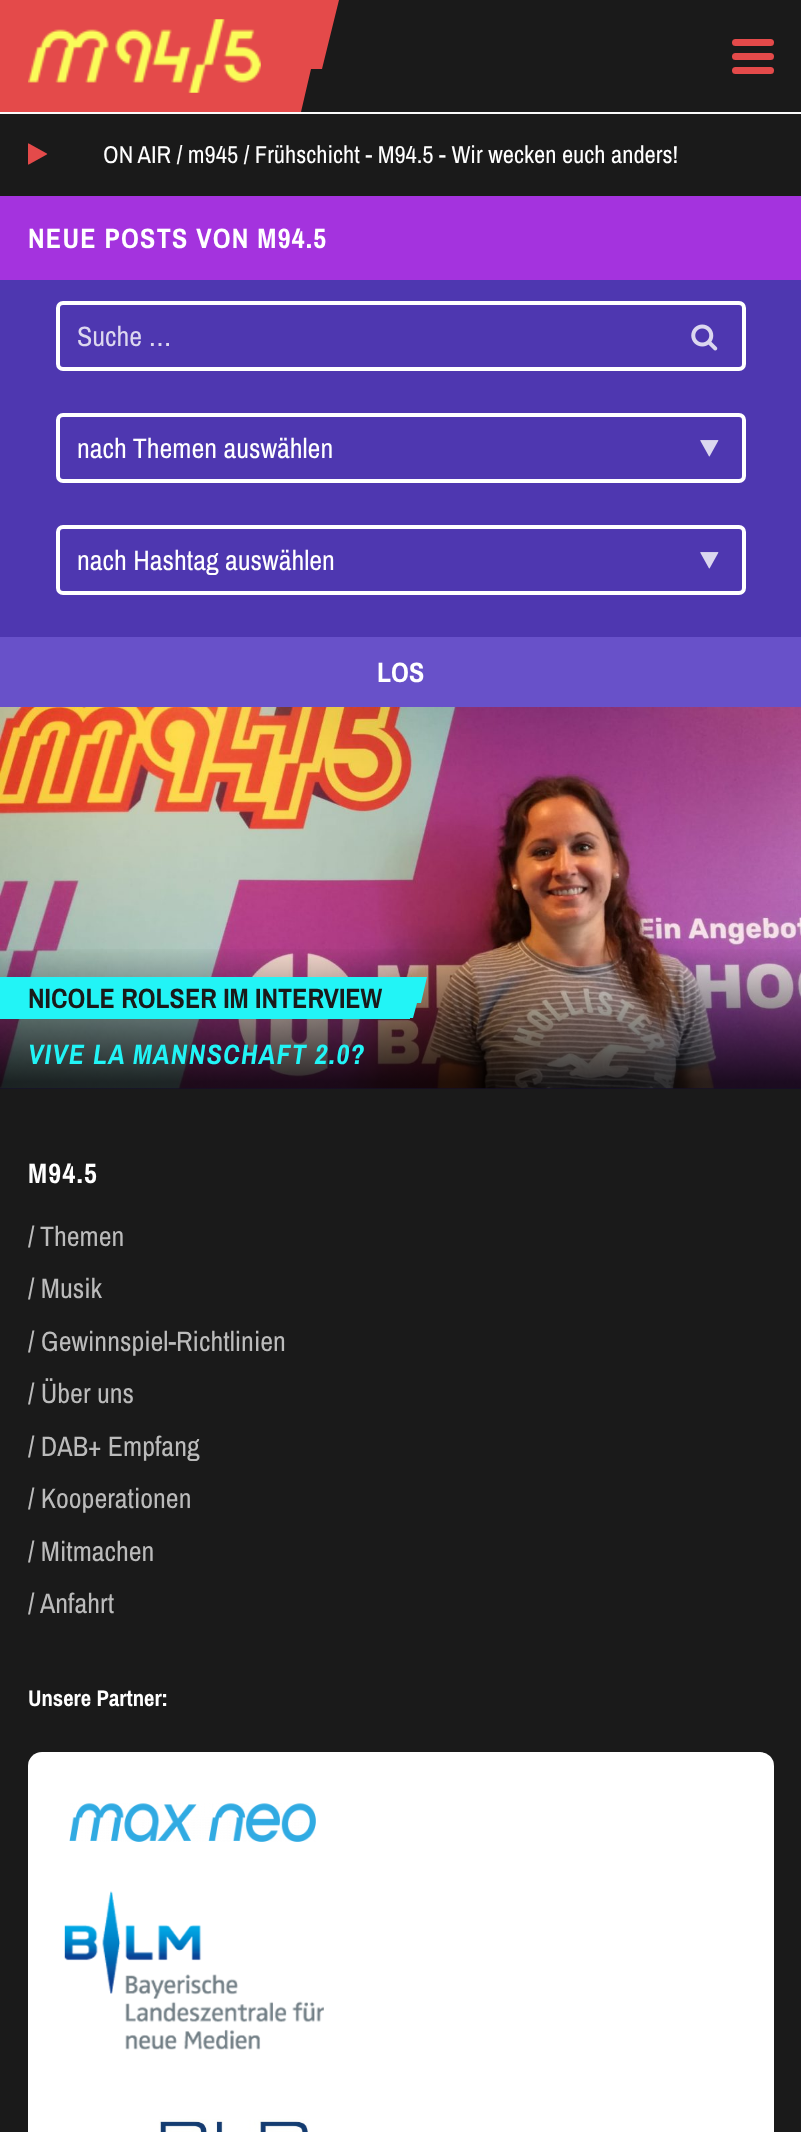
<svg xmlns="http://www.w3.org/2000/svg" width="801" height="2132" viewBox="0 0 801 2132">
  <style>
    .t1 { font: 24.5px Archivo Narrow; fill: #fff; }
    .t2 { font: bold 28px Archivo Narrow; letter-spacing: 1.25px; fill: #fff; }
    .t3 { font: 28px Archivo Narrow; fill: #dcd7ef; }
    .t4 { font: 28px Archivo Narrow; fill: #fff; }
    .t5 { font: bold 28px Archivo Narrow; fill: #fff; }
    .t6 { font: bold 28px Archivo Narrow; fill: #1a1a1a; }
    .t7 { font: italic bold 28px Archivo Narrow; letter-spacing: 1.25px; fill: #22f4f6; }
    .t8 { font: 28px Archivo Narrow; fill: #bbb; }
    .t9 { font: bold 22.75px Archivo Narrow; fill: #fff; }
  </style>
  <defs>
    <linearGradient id="g1" gradientUnits="userSpaceOnUse" x1="401" y1="945" x2="401" y2="1097"><stop offset="0" stop-color="#000" stop-opacity="0"/><stop offset="0.9" stop-color="#000" stop-opacity="0.8"/></linearGradient>
  </defs>
  <rect width="100%" height="100%" fill="#a433de"/>
  <rect x="301" y="0" width="500" height="112" fill="#1a1a1a"/>
  <rect x="0" y="112" width="801" height="2" fill="#fafafa"/>
  <rect x="0" y="0" width="287" height="112" fill="#e44a4a"/>
  <image x="28" y="19" width="233" height="74" href="images/1.png"/>
  <path d="M327 0H339L322 69H311L301 112H287V0Z" fill="#e44a4a" fill-rule="evenodd"/>
  <rect x="732" y="53" width="42" height="7" rx="3.5" fill="#e44a4a"/>
  <rect x="732" y="39" width="42" height="7" rx="3.5" fill="#e44a4a"/>
  <rect x="732" y="67" width="42" height="7" rx="3.5" fill="#e44a4a"/>
  <rect x="0" y="114" width="801" height="82" fill="#1a1a1a"/>
  <image x="28" y="143" width="20" height="22" href="images/2.png"/>
  <text x="103" y="163" class="t1">ON AIR / m945 / Frühschicht - M94.5 - Wir wecken euch anders!</text>
  <text x="28" y="248" class="t2">NEUE POSTS VON M94.5</text>
  <rect x="0" y="280" width="801" height="357" fill="#4e37b0"/>
  <rect x="58" y="303" width="686" height="66" rx="5" fill="none" stroke="#fff" stroke-width="4"/>
  <text x="77" y="346" class="t3">Suche …</text>
  <image x="691" y="324" width="27" height="27" href="images/3.png"/>
  <rect x="58" y="415" width="686" height="66" rx="5" fill="none" stroke="#fff" stroke-width="4"/>
  <text x="77" y="458" class="t4">nach Themen auswählen</text>
  <image x="700" y="440" width="19" height="17" href="images/4.png"/>
  <rect x="58" y="527" width="686" height="66" rx="5" fill="none" stroke="#fff" stroke-width="4"/>
  <text x="77" y="570" class="t4">nach Hashtag auswählen</text>
  <image x="700" y="552" width="19" height="17" href="images/4.png"/>
  <rect x="0" y="637" width="801" height="70" fill="#6851c9"/>
  <text x="377" y="682" class="t5">LOS</text>
  <rect x="0" y="1088" width="801" height="1" fill="#6851c9"/>
  <image x="0" y="707" width="801" height="382" href="images/5.png"/>
  <rect x="0" y="949" width="801" height="140" fill="url(#g1)"/>
  <rect x="0" y="977" width="410" height="42" fill="#22f4f6"/>
  <text x="28" y="1008" class="t6">NICOLE ROLSER IM INTERVIEW</text>
  <path d="M423 977H427L421 1003H417L413 1018H408V977Z" fill="#22f4f6" fill-rule="evenodd"/>
  <text x="28" y="1064" class="t7">VIVE LA MANNSCHAFT 2.0?</text>
  <rect x="0" y="1089" width="801" height="1043" fill="#1a1a1a"/>
  <text x="28" y="1183" class="t2">M94.5</text>
  <text x="28" y="1246" class="t8">/</text>
  <text x="40" y="1246" class="t8">Themen</text>
  <text x="28" y="1298" class="t8">/ Musik</text>
  <text x="28" y="1351" class="t8">/ Gewinnspiel-Richtlinien</text>
  <text x="28" y="1403" class="t8">/ Über uns</text>
  <text x="28" y="1456" class="t8">/ DAB+ Empfang</text>
  <text x="28" y="1508" class="t8">/ Kooperationen</text>
  <text x="28" y="1561" class="t8">/ Mitmachen</text>
  <text x="28" y="1613" class="t8">/</text>
  <text x="40" y="1613" class="t8">Anfahrt</text>
  <text x="28" y="1706" class="t9">Unsere Partner:</text>
  <rect x="28" y="1752" width="746" height="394" rx="14" fill="#fff"/>
  <image x="69" y="1803" width="247" height="39" href="images/6.png"/>
  <image x="64" y="1891" width="260" height="159" href="images/7.png"/>
  <image x="159" y="2119" width="150" height="13" href="images/8.png"/>
</svg>
